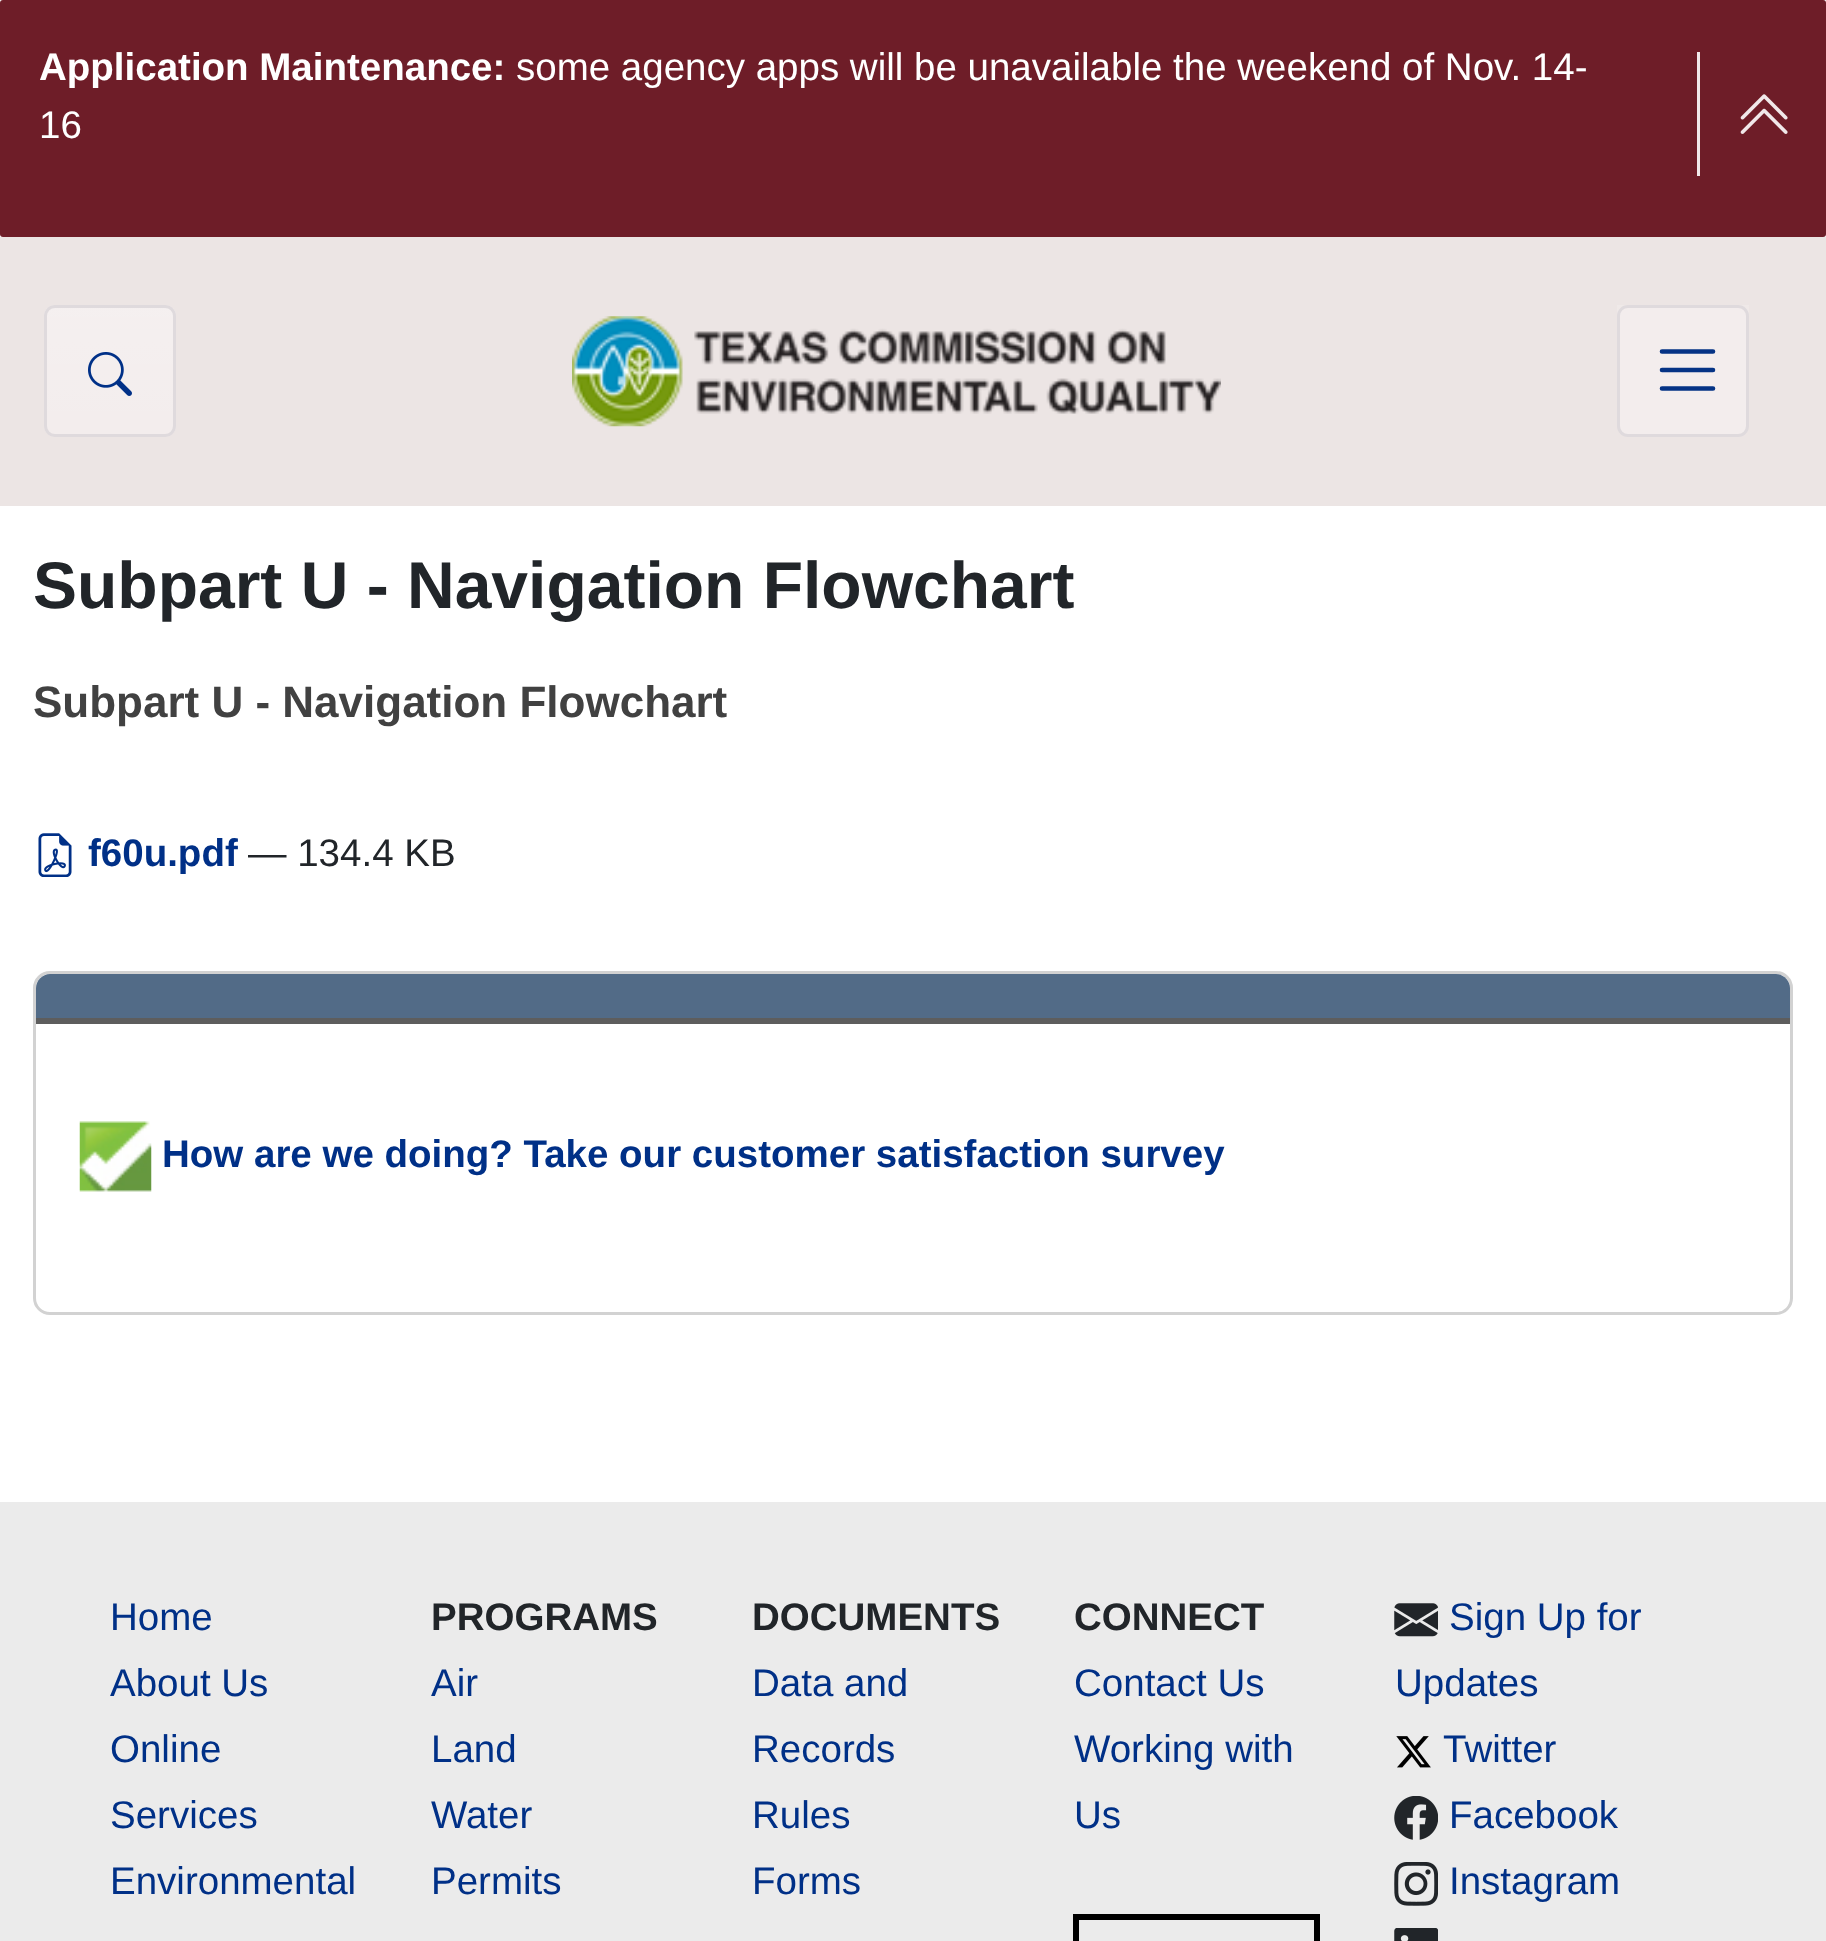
<svg xmlns="http://www.w3.org/2000/svg" width="1826" height="1941" viewBox="0 0 1826 1941">
  <style>
    .t1 { font: bold 38.5px Liberation Sans; fill: #fff; }
    .t2 { font: 38.5px Liberation Sans; fill: #fff; }
    .t3 { font: bold 66px Liberation Sans; fill: #212529; }
    .t4 { font: bold 44px Liberation Sans; fill: #414141; }
    .t5 { font: bold 38.5px Liberation Sans; fill: #003087; }
    .t6 { font: 38.5px Liberation Sans; fill: #212529; }
    .t7 { font: 38.5px Liberation Sans; fill: #003087; }
    .t8 { font: bold 38.5px Liberation Sans; fill: #212529; }
  </style>
  <defs>
    <clipPath id="clip1"><rect x="44" y="305" width="132" height="132" rx="11"/></clipPath>
    <linearGradient id="g1" gradientUnits="userSpaceOnUse" x1="110" y1="308" x2="110" y2="435"><stop offset="0" stop-color="#fff" stop-opacity="0.15"/><stop offset="1" stop-color="#fff" stop-opacity="0"/></linearGradient>
    <linearGradient id="g2" gradientUnits="userSpaceOnUse" x1="1683" y1="305" x2="1683" y2="437"><stop offset="0" stop-color="#efe9e8"/><stop offset="1" stop-color="#ece5e4"/></linearGradient>
  </defs>
  <rect width="100%" height="100%" fill="#fff"/>
  <rect x="0" y="0" width="1826" height="237" rx="3" fill="#6e1d28"/>
  <text x="39" y="80" class="t1">Application Maintenance:</text>
  <text x="516" y="80" class="t2">some agency apps will be unavailable the weekend of Nov. 14-</text>
  <text x="39" y="138" class="t2">16</text>
  <image x="1740" y="94" width="48" height="40" href="images/1.png"/>
  <rect x="1697" y="52" width="3" height="124" fill="#f1e8ea"/>
  <rect x="0" y="237" width="1826" height="269" fill="#ece5e4"/>
  <rect x="44" y="305" width="132" height="132" rx="11" fill="#f3eded"/>
  <g clip-path="url(#clip1)">
    <rect x="44" y="308" width="132" height="109" fill="url(#g1)"/>
  </g>
  <rect x="45.5" y="306.5" width="129" height="129" rx="9.5" fill="none" stroke="#dfdadd" stroke-width="3"/>
  <image x="88" y="352" width="44" height="44" href="images/2.png"/>
  <image x="572" y="316" width="649" height="111" href="images/3.png"/>
  <rect x="1617" y="305" width="132" height="50" fill="url(#g2)"/>
  <rect x="1618.5" y="306.5" width="129" height="129" rx="9.5" fill="#f3eded" stroke="#dfdadd" stroke-width="3"/>
  <path d="M1662 351.5H1713M1662 370H1713M1662 388.5H1713" fill="none" stroke="#053385" stroke-width="4.6" stroke-linecap="round"/>
  <text x="33" y="608" class="t3">Subpart U - Navigation Flowchart</text>
  <text x="33" y="717" class="t4">Subpart U - Navigation Flowchart</text>
  <image x="38" y="833" width="34" height="44" href="images/4.png"/>
  <text x="88" y="866" class="t5">f60u.pdf</text>
  <text x="248" y="866" class="t6">— 134.4 KB</text>
  <rect x="34.5" y="972.5" width="1757" height="341" rx="15.5" fill="none" stroke="#d2d2d2" stroke-width="3"/>
  <path d="M50 974H1776C1783.5 974 1790 980.5 1790 988V1023H36V988C36 980.5 42.5 974 50 974Z" fill="#526b87"/>
  <rect x="36" y="1018" width="1754" height="6" fill="#5d5d5d"/>
  <image x="79" y="1121" width="73" height="71" href="images/5.png"/>
  <text x="162" y="1167" class="t5">How are we doing? Take our customer satisfaction survey</text>
  <rect x="0" y="1502" width="1826" height="439" fill="#ebebeb"/>
  <text x="110" y="1630" class="t7">Home</text>
  <text x="110" y="1696" class="t7">About Us</text>
  <text x="110" y="1762" class="t7">Online</text>
  <text x="110" y="1828" class="t7">Services</text>
  <text x="110" y="1894" class="t7">Environmental</text>
  <text x="431" y="1630" class="t8">PROGRAMS</text>
  <text x="431" y="1696" class="t7">Air</text>
  <text x="431" y="1762" class="t7">Land</text>
  <text x="431" y="1828" class="t7">Water</text>
  <text x="431" y="1894" class="t7">Permits</text>
  <text x="752" y="1630" class="t8">DOCUMENTS</text>
  <text x="752" y="1696" class="t7">Data and</text>
  <text x="752" y="1762" class="t7">Records</text>
  <text x="752" y="1828" class="t7">Rules</text>
  <text x="752" y="1894" class="t7">Forms</text>
  <text x="1074" y="1630" class="t8">CONNECT</text>
  <text x="1074" y="1696" class="t7">Contact Us</text>
  <text x="1074" y="1762" class="t7">Working with</text>
  <text x="1074" y="1828" class="t7">Us</text>
  <rect x="1076" y="1917" width="241" height="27" fill="none" stroke="#000" stroke-width="6"/>
  <image x="1394" y="1603" width="44" height="34" href="images/6.png"/>
  <text x="1449" y="1630" class="t7">Sign Up for</text>
  <text x="1395" y="1696" class="t7">Updates</text>
  <image x="1396" y="1736" width="35" height="32" href="images/7.png"/>
  <text x="1443" y="1762" class="t7">Twitter</text>
  <image x="1394" y="1796" width="44" height="44" href="images/8.png"/>
  <text x="1449" y="1828" class="t7">Facebook</text>
  <image x="1394" y="1862" width="44" height="44" href="images/9.png"/>
  <text x="1449" y="1894" class="t7">Instagram</text>
  <image x="1394" y="1928" width="44" height="13" href="images/10.png"/>
</svg>
